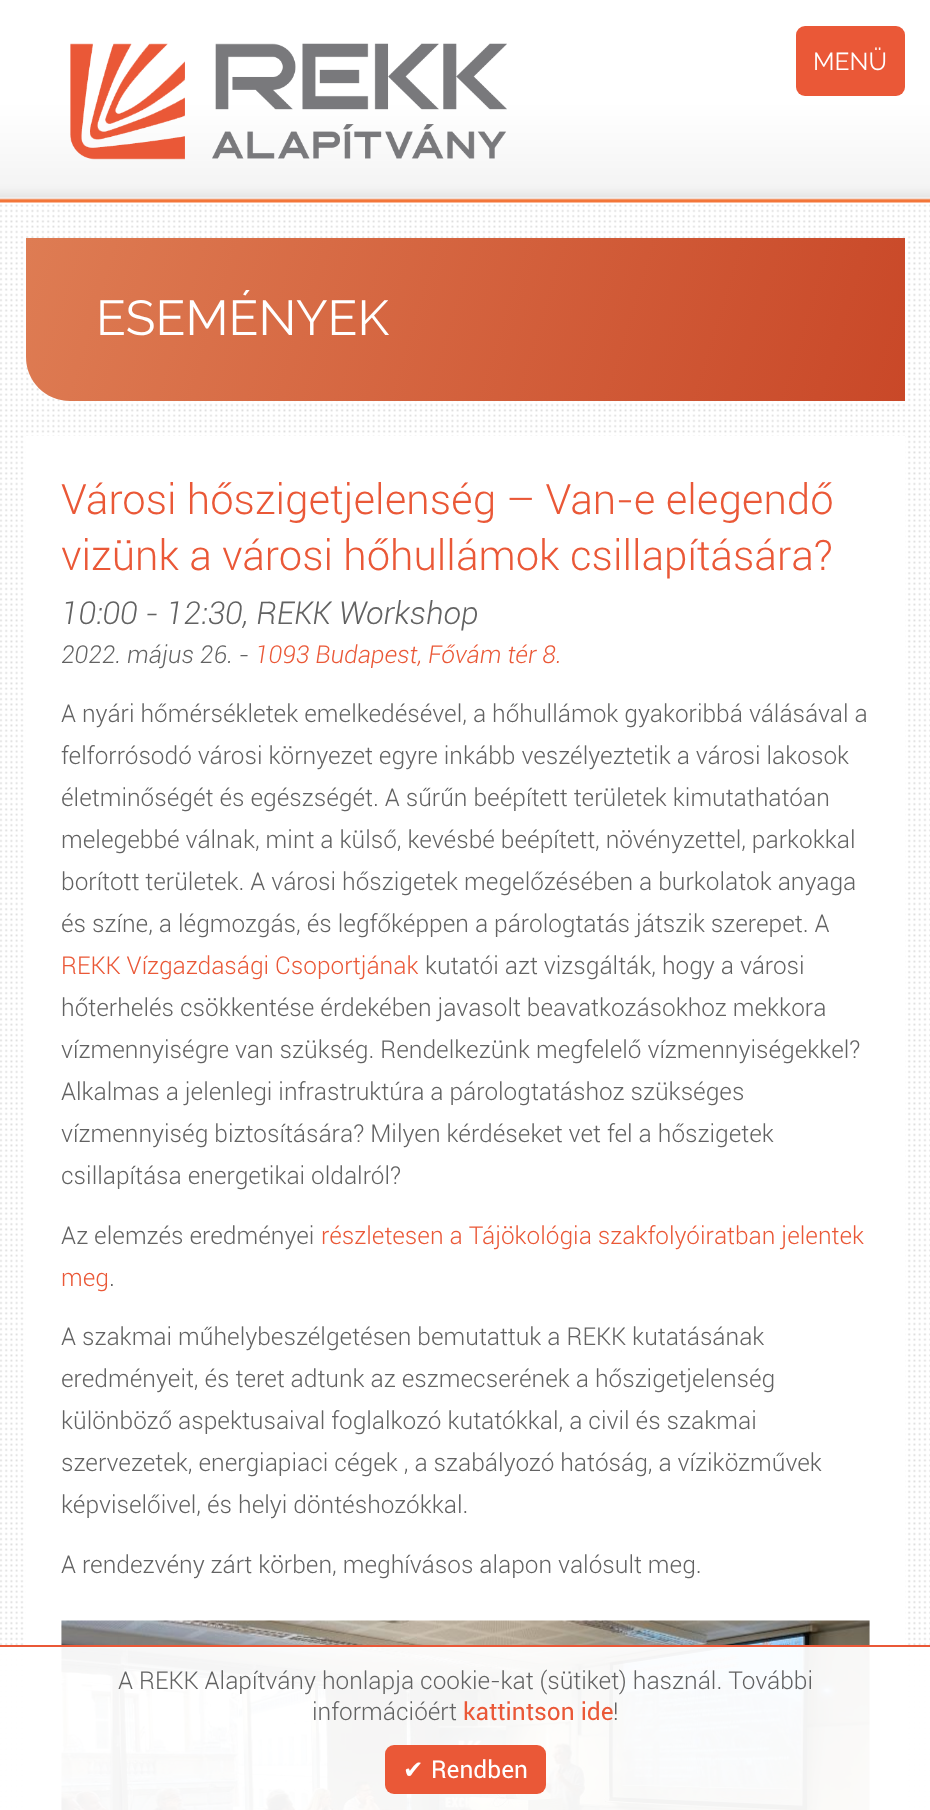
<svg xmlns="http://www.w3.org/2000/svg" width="930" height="1810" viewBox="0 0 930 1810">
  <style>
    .t1 { font: 24.5px Raleway; fill: #fff; }
    .t2 { font: 49px Raleway; fill: #fff; }
    .t3 { font: 300 42px Roboto; fill: #ea5837; }
    .t4 { font: italic 300 31.5px Roboto; fill: #626262; }
    .t5 { font: italic 300 24.5px Roboto; fill: #626262; }
    .t6 { font: italic 300 24.5px Roboto; fill: #ea5837; }
    .t7 { font: 300 24.5px Roboto; fill: #626262; }
    .t8 { font: 300 24.5px Roboto; fill: #ea5837; }
    .t9 { font: 24.5px Roboto; fill: #ea5837; }
    .t10 { font: 24.5px DejaVu Sans; fill: #fff; }
    .t11 { font: 24.5px Roboto; fill: #fff; }
  </style>
  <defs>
    <linearGradient id="g1" gradientUnits="userSpaceOnUse" x1="41" y1="190" x2="890" y2="449"><stop offset="0" stop-color="#de7c53"/><stop offset="1" stop-color="#c94828"/></linearGradient>
  </defs>
  <rect width="100%" height="100%" fill="#fff"/>
  <image x="0" y="0" width="930" height="203" href="images/1.png"/>
  <image x="70" y="43" width="437" height="117" href="images/2.png"/>
  <rect x="796" y="26" width="109" height="70" rx="9" fill="#ea5837"/>
  <text x="813" y="70" class="t1">MENÜ</text>
  <image x="0" y="204" width="930" height="1604" href="images/3.png"/>
  <path d="M26 238H905V401H70C45.5 401 26 381.5 26 357Z" fill="url(#g1)"/>
  <text x="96" y="335" class="t2">ESEMÉNYEK</text>
  <rect x="26" y="436" width="879" height="1372" fill="#fff"/>
  <text x="61" y="514" class="t3">Városi hőszigetjelenség – Van-e elegendő</text>
  <text x="61" y="570" class="t3">vizünk a városi hőhullámok csillapítására?</text>
  <text x="61" y="624" class="t4">10:00 - 12:30, REKK Workshop</text>
  <text x="61" y="663" class="t5">2022. május 26. -</text>
  <text x="255" y="663" class="t6">1093 Budapest, Fővám tér 8.</text>
  <text x="61" y="722" class="t7">A nyári hőmérsékletek emelkedésével, a hőhullámok gyakoribbá válásával a</text>
  <text x="61" y="764" class="t7">felforrósodó városi környezet egyre inkább veszélyeztetik a városi lakosok</text>
  <text x="61" y="806" class="t7">életminőségét és egészségét. A sűrűn beépített területek kimutathatóan</text>
  <text x="61" y="848" class="t7">melegebbé válnak, mint a külső, kevésbé beépített, növényzettel, parkokkal</text>
  <text x="61" y="890" class="t7">borított területek. A városi hőszigetek megelőzésében a burkolatok anyaga</text>
  <text x="61" y="932" class="t7">és színe, a légmozgás, és legfőképpen a párologtatás játszik szerepet. A</text>
  <text x="61" y="974" class="t8">REKK Vízgazdasági Csoportjának</text>
  <text x="425" y="974" class="t7">kutatói azt vizsgálták, hogy a városi</text>
  <text x="61" y="1016" class="t7">hőterhelés csökkentése érdekében javasolt beavatkozásokhoz mekkora</text>
  <text x="61" y="1058" class="t7">vízmennyiségre van szükség. Rendelkezünk megfelelő vízmennyiségekkel?</text>
  <text x="61" y="1100" class="t7">Alkalmas a jelenlegi infrastruktúra a párologtatáshoz szükséges</text>
  <text x="61" y="1142" class="t7">vízmennyiség biztosítására? Milyen kérdéseket vet fel a hőszigetek</text>
  <text x="61" y="1184" class="t7">csillapítása energetikai oldalról?</text>
  <text x="61" y="1244" class="t7">Az elemzés eredményei</text>
  <text x="321" y="1244" class="t8">részletesen a Tájökológia szakfolyóiratban jelentek</text>
  <text x="61" y="1286" class="t8">meg</text>
  <text x="109" y="1286" class="t7">.</text>
  <text x="61" y="1345" class="t7">A szakmai műhelybeszélgetésen bemutattuk a REKK kutatásának</text>
  <text x="61" y="1387" class="t7">eredményeit, és teret adtunk az eszmecserének a hőszigetjelenség</text>
  <text x="61" y="1429" class="t7">különböző aspektusaival foglalkozó kutatókkal, a civil és szakmai</text>
  <text x="61" y="1471" class="t7">szervezetek, energiapiaci cégek , a szabályozó hatóság, a víziközművek</text>
  <text x="61" y="1513" class="t7">képviselőivel, és helyi döntéshozókkal.</text>
  <text x="61" y="1573" class="t7">A rendezvény zárt körben, meghívásos alapon valósult meg.</text>
  <image x="61" y="1620" width="809" height="190" href="images/4.png"/>
  <rect x="0" y="1647" width="930" height="163" fill="#fffffff2"/>
  <rect x="0" y="1645" width="930" height="2" fill="#ea5837"/>
  <text x="118" y="1689" class="t7">A REKK Alapítvány honlapja cookie-kat (sütiket) használ. További</text>
  <text x="312" y="1720" class="t7">információért</text>
  <text x="463" y="1720" class="t9">kattintson ide</text>
  <text x="613" y="1720" class="t7">!</text>
  <rect x="385" y="1745" width="161" height="49" rx="9" fill="#ea5837"/>
  <text x="403" y="1778" class="t10">✔</text>
  <text x="431" y="1778" class="t11">Rendben</text>
</svg>
